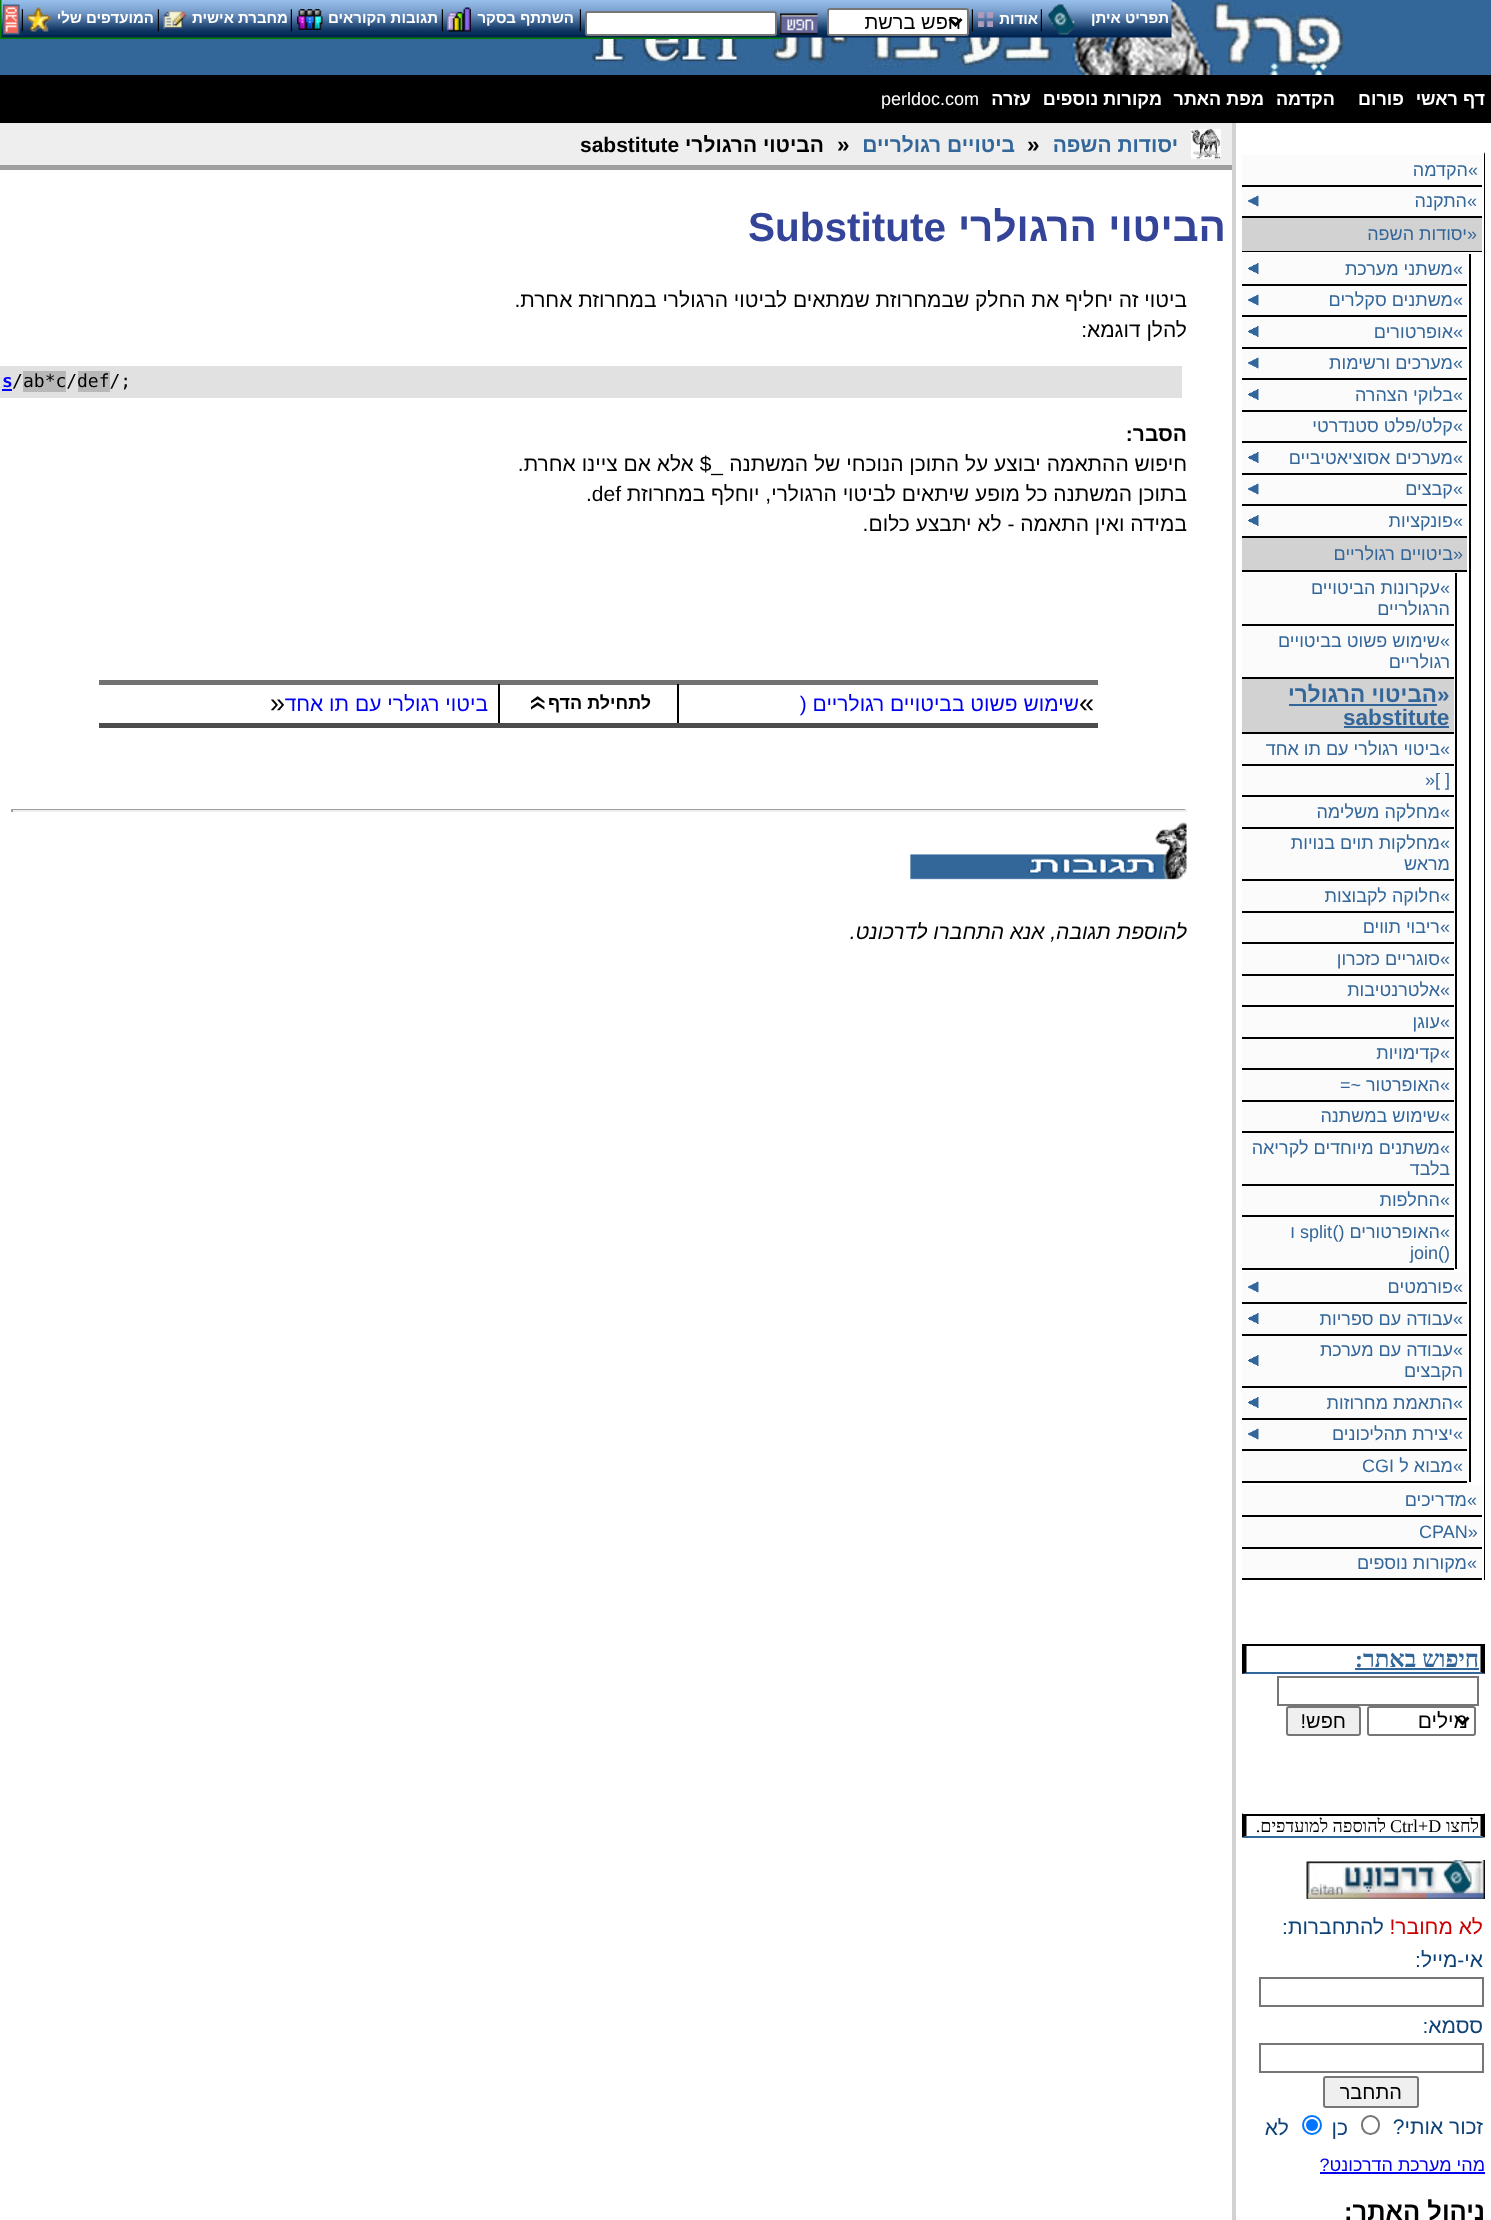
<svg xmlns="http://www.w3.org/2000/svg" width="1491" height="2220" viewBox="0 0 1491 2220">
  <style>
    .t1 { font: bold 15px Liberation Sans; direction: rtl; fill: #fff; }
    .t2 { font: 24px Liberation Serif; fill: #000; }
    .t3 { font: 20px Liberation Sans; direction: rtl; fill: #000; }
    .t4 { font: bold 18px Liberation Sans; direction: rtl; fill: #fff; }
    .t5 { font: 18px Liberation Sans; fill: #fff; }
    .t6 { font: 18px Liberation Sans; direction: rtl; fill: #369; }
    .t7 { font: 18px Liberation Sans; fill: #369; }
    .t8 { font: bold 22.5px Liberation Sans; fill: #369; }
    .t9 { font: bold 22.5px Liberation Sans; direction: rtl; fill: #369; }
    .t10 { font: bold 24px Liberation Serif; direction: rtl; fill: #369; }
    .t11 { font: 21px Liberation Sans; direction: rtl; fill: #000; }
    .t12 { font: 18px Liberation Serif; direction: rtl; fill: #000; }
    .t13 { font: 18px Liberation Serif; fill: #000; }
    .t14 { font: 21px Liberation Sans; direction: rtl; fill: #c00; }
    .t15 { font: 21px Liberation Sans; direction: rtl; fill: #0e4277; }
    .t16 { font: 18px Liberation Sans; direction: rtl; fill: #00e; }
    .t17 { font: bold 25.5px Liberation Sans; direction: rtl; fill: #000; }
    .t18 { font: bold 21px Liberation Sans; direction: rtl; fill: #369; }
    .t19 { font: bold 22.5px Liberation Sans; fill: #000; }
    .t20 { font: bold 21px Liberation Sans; direction: rtl; fill: #000; }
    .t21 { font: bold 21px Liberation Sans; fill: #000; }
    .t22 { font: bold 40.5px Liberation Sans; direction: rtl; fill: #349; }
    .t23 { font: bold 40.5px Liberation Sans; fill: #349; }
    .t24 { font: 18px DejaVu Sans Mono; fill: #000; }
    .t25 { font: bold 18px DejaVu Sans Mono; fill: #0000fb; }
    .t26 { font: 21px Liberation Sans; fill: #000; }
    .t27 { font: 27px Liberation Sans; fill: #000; }
    .t28 { font: 21px Liberation Sans; direction: rtl; fill: #00e; }
    .t29 { font: bold 18px Liberation Sans; direction: rtl; fill: #000; }
    .t30 { font: italic 21px Liberation Sans; direction: rtl; fill: #000; }
  </style>
  <rect width="100%" height="100%" fill="#fff"/>
  <rect x="0" y="0" width="1491" height="75" fill="#369"/>
  <image x="592" y="0" width="751" height="75" href="images/10.png"/>
  <rect x="1" y="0" width="780" height="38" fill="none" stroke="#008000" stroke-width="2"/>
  <image x="1" y="0" width="1171" height="38" href="images/1.png"/>
  <text x="1169" y="23" class="t1">תפריט איתן</text>
  <image x="1048" y="4" width="27" height="31" href="images/2.png"/>
  <text x="1039" y="26" class="t2">|</text>
  <text x="1038" y="24" class="t1">אודות</text>
  <image x="978" y="12" width="15" height="15" href="images/3.png"/>
  <text x="970" y="26" class="t2">|</text>
  <rect x="828" y="9" width="140" height="26" rx="2" fill="#fff" stroke="#767676" stroke-width="2"/>
  <path d="M949.5 19L955.5 25L961.5 19" fill="none" stroke="#000" stroke-width="3"/>
  <text x="961" y="29" class="t3">חפש ברשת</text>
  <image x="780" y="13" width="38" height="22" href="images/4.png"/>
  <rect x="586" y="12" width="190" height="23" rx="2" fill="#fff" stroke="#767676" stroke-width="2"/>
  <text x="578" y="26" class="t2">|</text>
  <text x="574" y="23" class="t1">השתתף בסקר</text>
  <image x="447" y="7" width="24" height="25" href="images/5.png"/>
  <text x="440" y="26" class="t2">|</text>
  <text x="438" y="23" class="t1">תגובות הקוראים</text>
  <image x="297" y="9" width="26" height="21" href="images/6.png"/>
  <text x="289" y="26" class="t2">|</text>
  <text x="288" y="23" class="t1">מחברת אישית</text>
  <image x="163" y="10" width="23" height="19" href="images/7.png"/>
  <text x="156" y="26" class="t2">|</text>
  <text x="154" y="23" class="t1">המועדפים שלי</text>
  <image x="27" y="7" width="24" height="25" href="images/8.png"/>
  <text x="20" y="26" class="t2">|</text>
  <image x="3" y="4" width="17" height="31" href="images/9.png"/>
  <rect x="0" y="75" width="1491" height="48" fill="#000"/>
  <text x="1485" y="105" class="t4">דף ראשי</text>
  <text x="1404" y="105" class="t4">פורום</text>
  <text x="1335" y="105" class="t4">הקדמה</text>
  <text x="1264" y="105" class="t4">מפת האתר</text>
  <text x="1162" y="105" class="t4">מקורות נוספים</text>
  <text x="1031" y="105" class="t4">עזרה</text>
  <text x="881" y="105" class="t5">perldoc.com</text>
  <path d="M1485 152V1580H1484V154Z" fill="#000"/>
  <rect x="1242" y="155" width="240" height="30" fill="#fbfbfb"/>
  <rect x="1242" y="185" width="240" height="2" fill="#000"/>
  <text x="1478" y="176" class="t6">»הקדמה</text>
  <rect x="1242" y="187" width="240" height="29" fill="#fbfbfb"/>
  <rect x="1242" y="216" width="240" height="2" fill="#000"/>
  <text x="1477" y="207" class="t6">»התקנה</text>
  <image x="1248" y="195" width="11" height="12" href="images/11.png"/>
  <rect x="1242" y="218" width="240" height="33" fill="#d2d2d2"/>
  <rect x="1242" y="251" width="240" height="1" fill="#000"/>
  <text x="1467" y="240" class="t7">»</text>
  <text x="1467" y="240" class="t6">יסודות השפה</text>
  <rect x="1469" y="254" width="2" height="1228" fill="#000"/>
  <rect x="1242" y="254" width="225" height="30" fill="#fbfbfb"/>
  <rect x="1242" y="284" width="225" height="2" fill="#000"/>
  <text x="1463" y="275" class="t6">»משתני מערכת</text>
  <image x="1248" y="263" width="11" height="11" href="images/12.png"/>
  <rect x="1242" y="286" width="225" height="29" fill="#fbfbfb"/>
  <rect x="1242" y="315" width="225" height="2" fill="#000"/>
  <text x="1463" y="306" class="t6">»משתנים סקלרים</text>
  <image x="1248" y="294" width="11" height="12" href="images/11.png"/>
  <rect x="1242" y="317" width="225" height="30" fill="#fbfbfb"/>
  <rect x="1242" y="347" width="225" height="2" fill="#000"/>
  <text x="1463" y="338" class="t6">»אופרטורים</text>
  <image x="1248" y="326" width="11" height="11" href="images/12.png"/>
  <rect x="1242" y="349" width="225" height="29" fill="#fbfbfb"/>
  <rect x="1242" y="378" width="225" height="2" fill="#000"/>
  <text x="1463" y="369" class="t6">»מערכים ורשימות</text>
  <image x="1248" y="357" width="11" height="12" href="images/11.png"/>
  <rect x="1242" y="380" width="225" height="30" fill="#fbfbfb"/>
  <rect x="1242" y="410" width="225" height="2" fill="#000"/>
  <text x="1463" y="401" class="t6">»בלוקי הצהרה</text>
  <image x="1248" y="389" width="11" height="11" href="images/12.png"/>
  <rect x="1242" y="412" width="225" height="29" fill="#fbfbfb"/>
  <rect x="1242" y="441" width="225" height="2" fill="#000"/>
  <text x="1463" y="432" class="t6">»קלט/פלט סטנדרטי</text>
  <rect x="1242" y="443" width="225" height="30" fill="#fbfbfb"/>
  <rect x="1242" y="473" width="225" height="2" fill="#000"/>
  <text x="1463" y="464" class="t6">»מערכים אסוציאטיביים</text>
  <image x="1248" y="452" width="11" height="11" href="images/12.png"/>
  <rect x="1242" y="475" width="225" height="29" fill="#fbfbfb"/>
  <rect x="1242" y="504" width="225" height="2" fill="#000"/>
  <text x="1463" y="495" class="t6">»קבצים</text>
  <image x="1248" y="483" width="11" height="12" href="images/11.png"/>
  <rect x="1242" y="506" width="225" height="30" fill="#fbfbfb"/>
  <rect x="1242" y="536" width="225" height="2" fill="#000"/>
  <text x="1463" y="527" class="t6">»פונקציות</text>
  <image x="1248" y="515" width="11" height="11" href="images/12.png"/>
  <rect x="1242" y="538" width="225" height="32" fill="#d2d2d2"/>
  <rect x="1242" y="570" width="225" height="2" fill="#000"/>
  <text x="1453" y="560" class="t7">»</text>
  <text x="1453" y="560" class="t6">ביטויים רגולריים</text>
  <rect x="1455" y="573" width="2" height="696" fill="#000"/>
  <rect x="1242" y="573" width="212" height="51" fill="#fbfbfb"/>
  <rect x="1242" y="624" width="212" height="2" fill="#000"/>
  <text x="1450" y="594" class="t6">»עקרונות הביטויים</text>
  <text x="1450" y="615" class="t6">הרגולריים</text>
  <rect x="1242" y="626" width="212" height="51" fill="#fbfbfb"/>
  <rect x="1242" y="677" width="212" height="2" fill="#000"/>
  <text x="1450" y="647" class="t6">»שימוש פשוט בביטויים</text>
  <text x="1450" y="668" class="t6">רגולריים</text>
  <rect x="1242" y="679" width="212" height="53" fill="#d2d2d2"/>
  <rect x="1242" y="732" width="212" height="2" fill="#000"/>
  <text x="1437" y="702" class="t8">»</text>
  <rect x="1289" y="704" width="148" height="2" fill="#369"/>
  <text x="1437" y="702" class="t9">הביטוי הרגולרי</text>
  <text x="1343" y="725" class="t8">sabstitute</text>
  <rect x="1344" y="726" width="105" height="2" fill="#369"/>
  <rect x="1242" y="734" width="212" height="30" fill="#fbfbfb"/>
  <rect x="1242" y="764" width="212" height="2" fill="#000"/>
  <text x="1450" y="755" class="t6">»ביטוי רגולרי עם תו אחד</text>
  <rect x="1242" y="766" width="212" height="29" fill="#fbfbfb"/>
  <rect x="1242" y="795" width="212" height="2" fill="#000"/>
  <text x="1425" y="786" class="t7">»[ ]</text>
  <rect x="1242" y="797" width="212" height="30" fill="#fbfbfb"/>
  <rect x="1242" y="827" width="212" height="2" fill="#000"/>
  <text x="1450" y="818" class="t6">»מחלקה משלימה</text>
  <rect x="1242" y="829" width="212" height="50" fill="#fbfbfb"/>
  <rect x="1242" y="879" width="212" height="2" fill="#000"/>
  <text x="1450" y="849" class="t6">»מחלקות תוים בנויות</text>
  <text x="1450" y="870" class="t6">מראש</text>
  <rect x="1242" y="881" width="212" height="30" fill="#fbfbfb"/>
  <rect x="1242" y="911" width="212" height="2" fill="#000"/>
  <text x="1450" y="902" class="t6">»חלוקה לקבוצות</text>
  <rect x="1242" y="913" width="212" height="29" fill="#fbfbfb"/>
  <rect x="1242" y="942" width="212" height="2" fill="#000"/>
  <text x="1450" y="933" class="t6">»ריבוי תווים</text>
  <rect x="1242" y="944" width="212" height="30" fill="#fbfbfb"/>
  <rect x="1242" y="974" width="212" height="2" fill="#000"/>
  <text x="1450" y="965" class="t6">»סוגריים כזכרון</text>
  <rect x="1242" y="976" width="212" height="29" fill="#fbfbfb"/>
  <rect x="1242" y="1005" width="212" height="2" fill="#000"/>
  <text x="1450" y="996" class="t6">»אלטרנטיבות</text>
  <rect x="1242" y="1007" width="212" height="30" fill="#fbfbfb"/>
  <rect x="1242" y="1037" width="212" height="2" fill="#000"/>
  <text x="1450" y="1028" class="t6">»עוגן</text>
  <rect x="1242" y="1039" width="212" height="29" fill="#fbfbfb"/>
  <rect x="1242" y="1068" width="212" height="2" fill="#000"/>
  <text x="1450" y="1059" class="t6">»קדימויות</text>
  <rect x="1242" y="1070" width="212" height="30" fill="#fbfbfb"/>
  <rect x="1242" y="1100" width="212" height="2" fill="#000"/>
  <text x="1450" y="1091" class="t6">»האופרטור ~=</text>
  <rect x="1242" y="1102" width="212" height="29" fill="#fbfbfb"/>
  <rect x="1242" y="1131" width="212" height="2" fill="#000"/>
  <text x="1450" y="1122" class="t6">»שימוש במשתנה</text>
  <rect x="1242" y="1133" width="212" height="51" fill="#fbfbfb"/>
  <rect x="1242" y="1184" width="212" height="2" fill="#000"/>
  <text x="1450" y="1154" class="t6">»משתנים מיוחדים לקריאה</text>
  <text x="1450" y="1175" class="t6">בלבד</text>
  <rect x="1242" y="1186" width="212" height="29" fill="#fbfbfb"/>
  <rect x="1242" y="1215" width="212" height="2" fill="#000"/>
  <text x="1450" y="1206" class="t6">»החלפות</text>
  <rect x="1242" y="1217" width="212" height="51" fill="#fbfbfb"/>
  <rect x="1242" y="1268" width="212" height="2" fill="#000"/>
  <text x="1450" y="1238" class="t6">»האופרטורים ()</text>
  <text x="1300" y="1238" class="t7">split</text>
  <text x="1295" y="1238" class="t6">ו</text>
  <text x="1410" y="1259" class="t7">join()</text>
  <rect x="1242" y="1272" width="225" height="30" fill="#fbfbfb"/>
  <rect x="1242" y="1302" width="225" height="2" fill="#000"/>
  <text x="1463" y="1293" class="t6">»פורמטים</text>
  <image x="1248" y="1281" width="11" height="12" href="images/11.png"/>
  <rect x="1242" y="1304" width="225" height="30" fill="#fbfbfb"/>
  <rect x="1242" y="1334" width="225" height="2" fill="#000"/>
  <text x="1463" y="1325" class="t6">»עבודה עם ספריות</text>
  <image x="1248" y="1313" width="11" height="11" href="images/12.png"/>
  <rect x="1242" y="1336" width="225" height="50" fill="#fbfbfb"/>
  <rect x="1242" y="1386" width="225" height="2" fill="#000"/>
  <text x="1463" y="1356" class="t6">»עבודה עם מערכת</text>
  <text x="1463" y="1377" class="t6">הקבצים</text>
  <image x="1248" y="1355" width="11" height="11" href="images/12.png"/>
  <rect x="1242" y="1388" width="225" height="30" fill="#fbfbfb"/>
  <rect x="1242" y="1418" width="225" height="2" fill="#000"/>
  <text x="1463" y="1409" class="t6">»התאמת מחרוזות</text>
  <image x="1248" y="1397" width="11" height="11" href="images/12.png"/>
  <rect x="1242" y="1420" width="225" height="29" fill="#fbfbfb"/>
  <rect x="1242" y="1449" width="225" height="2" fill="#000"/>
  <text x="1463" y="1440" class="t6">»יצירת תהליכונים</text>
  <image x="1248" y="1428" width="11" height="12" href="images/11.png"/>
  <rect x="1242" y="1451" width="225" height="30" fill="#fbfbfb"/>
  <rect x="1242" y="1481" width="225" height="2" fill="#000"/>
  <text x="1463" y="1472" class="t6">»מבוא ל</text>
  <text x="1362" y="1472" class="t7">CGI</text>
  <rect x="1242" y="1485" width="240" height="30" fill="#fbfbfb"/>
  <rect x="1242" y="1515" width="240" height="2" fill="#000"/>
  <text x="1477" y="1506" class="t6">»מדריכים</text>
  <rect x="1242" y="1517" width="240" height="30" fill="#fbfbfb"/>
  <rect x="1242" y="1547" width="240" height="2" fill="#000"/>
  <text x="1419" y="1538" class="t7">CPAN»</text>
  <rect x="1242" y="1549" width="240" height="29" fill="#fbfbfb"/>
  <rect x="1242" y="1578" width="240" height="2" fill="#000"/>
  <text x="1477" y="1569" class="t6">»מקורות נוספים</text>
  <rect x="1242" y="1644" width="243" height="2" fill="#000"/>
  <path d="M1485 1644V1674L1480.5 1672.5V1645.5Z" fill="#000"/>
  <path d="M1485 1674H1242L1246 1672H1480Z" fill="#369"/>
  <path d="M1242 1674V1644L1246.5 1645.5V1672.5Z" fill="#000"/>
  <text x="1479" y="1667" class="t10">חיפוש באתר:</text>
  <rect x="1355" y="1668" width="124" height="2" fill="#369"/>
  <rect x="1278" y="1677" width="200" height="28" fill="none" stroke="#767676" stroke-width="2"/>
  <rect x="1368" y="1707" width="107" height="28" rx="2" fill="none" stroke="#767676" stroke-width="2"/>
  <path d="M1456.5 1717.5L1462.5 1723.5L1468.5 1717.5" fill="none" stroke="#000" stroke-width="3"/>
  <text x="1468" y="1728" class="t11">מילים</text>
  <rect x="1287" y="1707" width="73" height="28" rx="2" fill="#efefef" stroke="#767676" stroke-width="2"/>
  <text x="1346" y="1728" class="t3">חפש!</text>
  <rect x="1242" y="1814" width="243" height="2" fill="#000"/>
  <path d="M1485 1813.5V1837.5L1480.5 1836V1815Z" fill="#000"/>
  <path d="M1485 1838H1242L1246 1836H1480Z" fill="#369"/>
  <path d="M1242 1837.5V1813.5L1246.5 1815V1836Z" fill="#000"/>
  <text x="1479" y="1832" class="t12">לחצו</text>
  <text x="1390" y="1832" class="t13">Ctrl+D</text>
  <text x="1386" y="1832" class="t12">להוספה למועדפים.</text>
  <image x="1306" y="1860" width="179" height="39" href="images/13.png"/>
  <text x="1483" y="1934" class="t14">לא מחובר!</text>
  <text x="1384" y="1934" class="t15">להתחברות:</text>
  <text x="1483" y="1967" class="t15">אי-מייל:</text>
  <rect x="1260" y="1978" width="223" height="28" fill="none" stroke="#767676" stroke-width="2"/>
  <text x="1483" y="2033" class="t15">ססמא:</text>
  <rect x="1260" y="2044" width="223" height="28" fill="none" stroke="#767676" stroke-width="2"/>
  <rect x="1324" y="2077" width="94" height="30" rx="2" fill="#efefef" stroke="#767676" stroke-width="2"/>
  <text x="1402" y="2099" class="t3">התחבר</text>
  <text x="1483" y="2134" class="t15">זכור אותי?</text>
  <rect x="1362" y="2116" width="17" height="18" rx="8.5" fill="none" stroke="#767676" stroke-width="2"/>
  <text x="1348" y="2135" class="t15">כן</text>
  <circle cx="1312" cy="2125" r="9" fill="none" stroke="#0075ff" stroke-width="2"/>
  <circle cx="1312" cy="2125" r="6" fill="#0075ff"/>
  <text x="1289" y="2135" class="t15">לא</text>
  <text x="1485" y="2171" class="t16">מהי מערכת הדרכונט?</text>
  <rect x="1320" y="2172" width="165" height="2" fill="#00e"/>
  <text x="1485" y="2220" class="t17">ניהול האתר:</text>
  <rect x="1232" y="123" width="4" height="2097" fill="#d2d2d2"/>
  <rect x="0" y="123" width="1232" height="42" fill="#eee"/>
  <rect x="0" y="165" width="1232" height="5" fill="#9f9f9f"/>
  <image x="1191" y="129" width="30" height="30" href="images/14.png"/>
  <text x="1178" y="152" class="t18">יסודות השפה</text>
  <text x="1027" y="152" class="t19">»</text>
  <text x="1015" y="152" class="t18">ביטויים רגולריים</text>
  <text x="837" y="152" class="t19">»</text>
  <text x="824" y="152" class="t20">הביטוי הרגולרי</text>
  <text x="580" y="152" class="t21">sabstitute</text>
  <text x="1226" y="241" class="t22">הביטוי הרגולרי</text>
  <text x="748" y="241" class="t23">Substitute</text>
  <text x="1187" y="307" class="t11">ביטוי זה יחליף את החלק שבמחרוזת שמתאים לביטוי הרגולרי במחרוזת אחרת.</text>
  <text x="1187" y="337" class="t11">להלן דוגמא:</text>
  <rect x="0" y="366" width="1182" height="32" fill="#e1e1e1"/>
  <rect x="78" y="371" width="32" height="21" fill="#b8b8b8"/>
  <text x="77" y="387" class="t24">def/;</text>
  <rect x="23" y="371" width="43" height="21" fill="#b8b8b8"/>
  <text x="23" y="387" class="t24">ab*c/</text>
  <text x="12" y="387" class="t24">/</text>
  <text x="2" y="387" class="t25">s</text>
  <rect x="2" y="389" width="10" height="2" fill="#0000fb"/>
  <text x="1187" y="441" class="t20">הסבר:</text>
  <text x="1187" y="471" class="t11">חיפוש ההתאמה יבוצע על התוכן הנוכחי של המשתנה</text>
  <text x="723" y="471" class="t11">_$ אלא אם ציינו אחרת.</text>
  <text x="1187" y="501" class="t11">בתוכן המשתנה כל מופע שיתאים לביטוי הרגולרי, יוחלף במחרוזת</text>
  <text x="586" y="501" class="t26">.def</text>
  <text x="1187" y="531" class="t11">במידה ואין התאמה - לא יתבצע כלום.</text>
  <rect x="99" y="680" width="999" height="5" fill="#727272"/>
  <rect x="99" y="723" width="999" height="5" fill="#4c4c4c"/>
  <text x="1079" y="712" class="t27">«</text>
  <text x="1079" y="711" class="t28">שימוש פשוט בביטויים רגולריים (</text>
  <rect x="677" y="684" width="2" height="39" fill="#000"/>
  <rect x="498" y="684" width="2" height="39" fill="#000"/>
  <text x="651" y="709" class="t29">לתחילת הדף</text>
  <image x="531" y="696" width="14" height="14" href="images/15.png"/>
  <text x="488" y="711" class="t28">ביטוי רגולרי עם תו אחד</text>
  <text x="270" y="712" class="t27">»</text>
  <rect x="11" y="809" width="1176" height="1" fill="#9f9f9f"/>
  <rect x="1185" y="809" width="2" height="3" fill="#eee"/>
  <rect x="11" y="810" width="1176" height="2" fill="#eee"/>
  <rect x="11" y="809" width="2" height="3" fill="#9f9f9f"/>
  <image x="910" y="822" width="277" height="58" href="images/16.png"/>
  <text x="1187" y="939" class="t30">להוספת תגובה, אנא התחברו לדרכונט.</text>
</svg>
